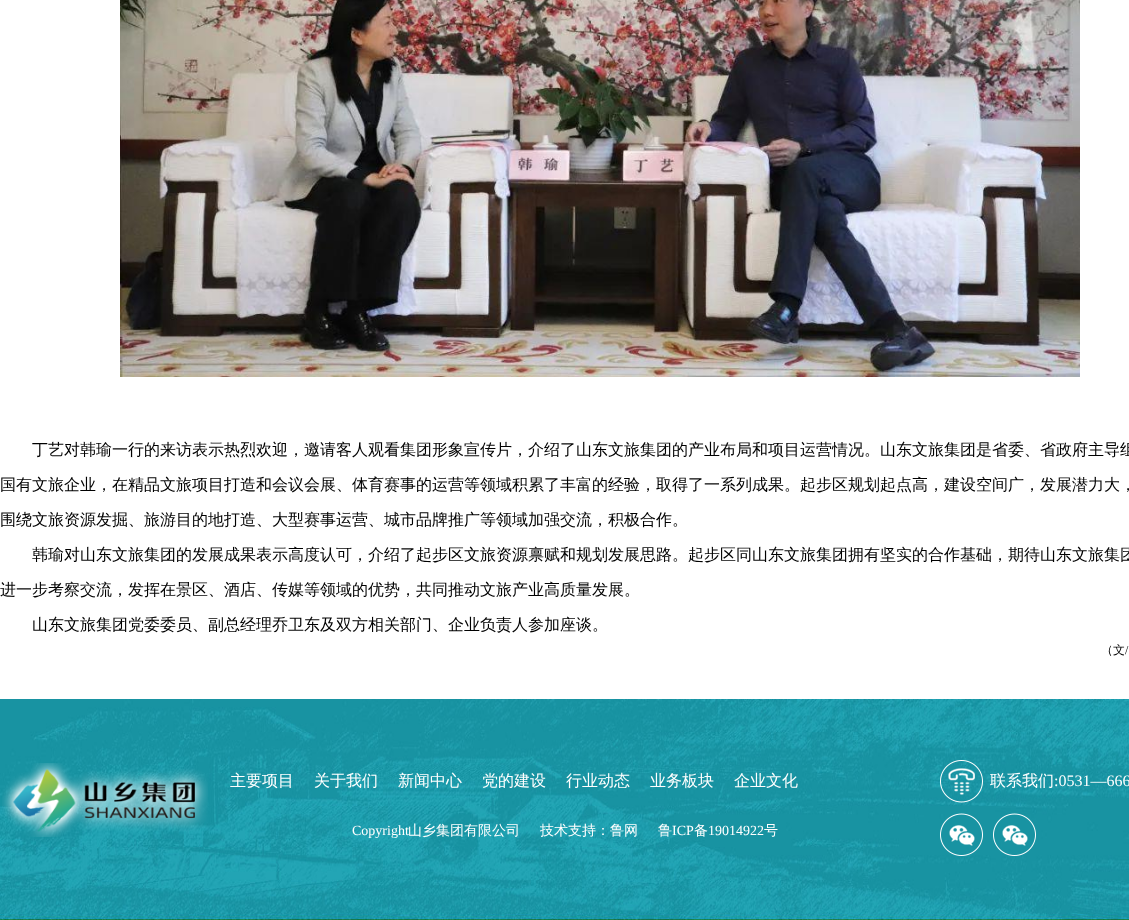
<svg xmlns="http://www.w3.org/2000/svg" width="1129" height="920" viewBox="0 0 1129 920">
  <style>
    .t1 { font: 500 16px WenQuanYi Zen Hei; fill: #000; }
    .t2 { font: 500 12px WenQuanYi Zen Hei; fill: #000; }
    .t3 { font: 12px Liberation Serif; fill: #000; }
    .t4 { font: 500 16px WenQuanYi Zen Hei; fill: #fff; }
    .t5 { font: 14px Liberation Serif; fill: #fff; }
    .t6 { font: 500 14px WenQuanYi Zen Hei; fill: #fff; }
    .t7 { font: 16px Liberation Serif; fill: #fff; }
  </style>
  <rect width="100%" height="100%" fill="#fff"/>
  <image x="120" y="0" width="960" height="377" href="images/1.png"/>
  <text x="32" y="455" class="t1">丁艺对韩瑜一行的来访表示热烈欢迎，邀请客人观看集团形象宣传片，介绍了山东文旅集团的产业布局和项目运营情况。山东文旅集团是省委、省政府主导组</text>
  <text x="0" y="490" class="t1">国有文旅企业，在精品文旅项目打造和会议会展、体育赛事的运营等领域积累了丰富的经验，取得了一系列成果。起步区规划起点高，建设空间广，发展潜力大，</text>
  <text x="0" y="525" class="t1">围绕文旅资源发掘、旅游目的地打造、大型赛事运营、城市品牌推广等领域加强交流，积极合作。</text>
  <text x="32" y="560" class="t1">韩瑜对山东文旅集团的发展成果表示高度认可，介绍了起步区文旅资源禀赋和规划发展思路。起步区同山东文旅集团拥有坚实的合作基础，期待山东文旅集团</text>
  <text x="0" y="595" class="t1">进一步考察交流，发挥在景区、酒店、传媒等领域的优势，共同推动文旅产业高质量发展。</text>
  <text x="32" y="630" class="t1">山东文旅集团党委委员、副总经理乔卫东及双方相关部门、企业负责人参加座谈。</text>
  <text x="1101" y="654" class="t2">（文</text>
  <text x="1125" y="654" class="t3">/</text>
  <image x="0" y="699" width="1129" height="221" href="images/2.png"/>
  <image x="2" y="763" width="206" height="74" href="images/3.png"/>
  <text x="230" y="786" class="t4">主要项目</text>
  <text x="314" y="786" class="t4">关于我们</text>
  <text x="398" y="786" class="t4">新闻中心</text>
  <text x="482" y="786" class="t4">党的建设</text>
  <text x="566" y="786" class="t4">行业动态</text>
  <text x="650" y="786" class="t4">业务板块</text>
  <text x="734" y="786" class="t4">企业文化</text>
  <text x="352" y="835" class="t5">Copyright</text>
  <text x="408" y="835" class="t6">山乡集团有限公司</text>
  <text x="540" y="835" class="t6">技术支持：鲁网</text>
  <text x="658" y="835" class="t6">鲁</text>
  <text x="672" y="835" class="t5">ICP</text>
  <text x="694" y="835" class="t6">备</text>
  <text x="708" y="835" class="t5">19014922</text>
  <text x="764" y="835" class="t6">号</text>
  <image x="940" y="760" width="43" height="43" href="images/4.png"/>
  <text x="990" y="786" class="t4">联系我们</text>
  <text x="1054" y="786" class="t7">:0531—666</text>
  <image x="940" y="813" width="43" height="43" href="images/5.png"/>
  <image x="993" y="813" width="43" height="43" href="images/6.png"/>
</svg>
